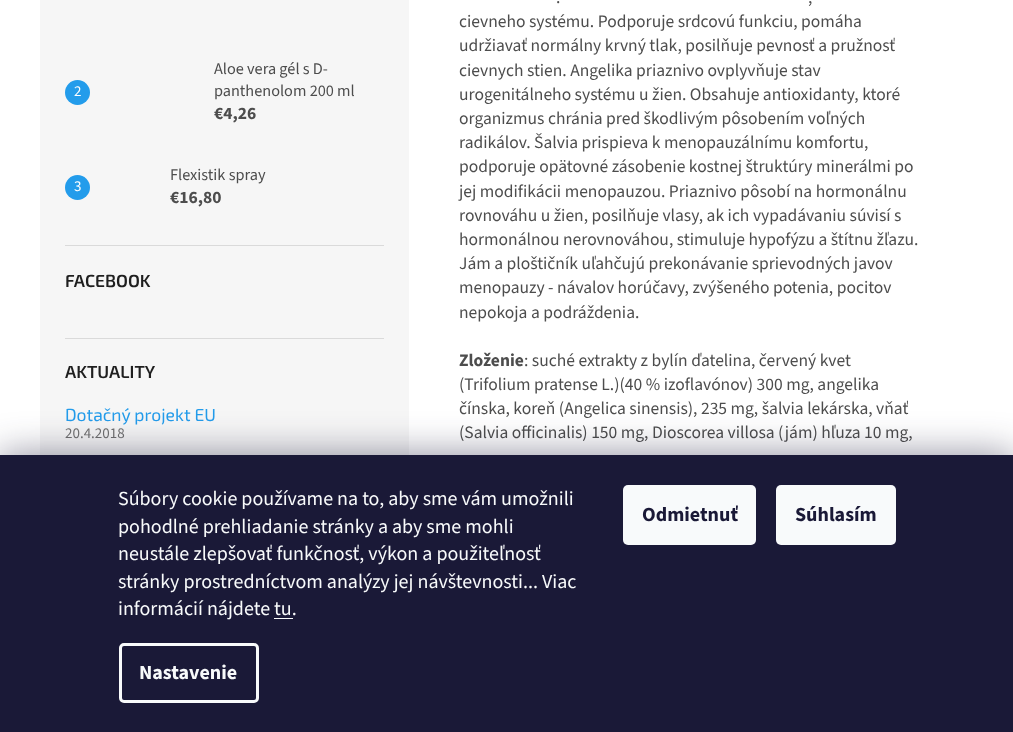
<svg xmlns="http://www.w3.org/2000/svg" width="1013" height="732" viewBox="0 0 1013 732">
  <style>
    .t1 { font: 15px 'Source Sans 3'; fill: #fff; }
    .t2 { font: 16.25px 'Source Sans 3'; fill: #4d4d4d; }
    .t3 { font: bold 17.5px 'Source Sans 3'; fill: #4d4d4d; }
    .t4 { font: 600 17.5px 'Exo 2'; fill: #1f1f1f; }
    .t5 { font: 17.5px 'Exo 2'; fill: #239ceb; }
    .t6 { font: 15px 'Source Sans 3'; fill: #707070; }
    .t7 { font: 17.5px 'Source Sans 3'; fill: #4d4d4d; }
    .t8 { font: 20px 'Source Sans 3'; fill: #f8fafb; }
    .t9 { font: bold 20px 'Source Sans 3'; fill: #f8fafb; }
    .t10 { font: bold 20px 'Source Sans 3'; fill: #1a1937; }
  </style>
  <rect width="100%" height="100%" fill="#fff"/>
  <rect x="40" y="0" width="369" height="455" fill="#f6f6f6"/>
  <rect x="65" y="245" width="319" height="1" fill="#dadada"/>
  <circle cx="77.5" cy="92.5" r="12.5" fill="#239ceb"/>
  <text x="74" y="96" class="t1">2</text>
  <text x="214" y="74" class="t2">Aloe vera gél s D-</text>
  <text x="214" y="96" class="t2">panthenolom 200 ml</text>
  <text x="214" y="119" class="t3">€4,26</text>
  <circle cx="77.5" cy="187.5" r="12.5" fill="#239ceb"/>
  <text x="74" y="191" class="t1">3</text>
  <text x="170" y="180" class="t2">Flexistik spray</text>
  <text x="170" y="203" class="t3">€16,80</text>
  <rect x="65" y="338" width="319" height="1" fill="#dadada"/>
  <text x="65" y="287" class="t4">FACEBOOK</text>
  <text x="65" y="378" class="t4">AKTUALITY</text>
  <text x="65" y="421" class="t5">Dotačný projekt EU</text>
  <text x="65" y="438" class="t6">20.4.2018</text>
  <text x="556" y="3" class="t7">.</text>
  <text x="808" y="3" class="t7">,</text>
  <text x="459" y="27" class="t7">cievneho systému. Podporuje srdcovú funkciu, pomáha</text>
  <text x="459" y="51" class="t7">udržiavať normálny krvný tlak, posilňuje pevnosť a pružnosť</text>
  <text x="459" y="76" class="t7">cievnych stien. Angelika priaznivo ovplyvňuje stav</text>
  <text x="459" y="100" class="t7">urogenitálneho systému u žien. Obsahuje antioxidanty, ktoré</text>
  <text x="459" y="124" class="t7">organizmus chránia pred škodlivým pôsobením voľných</text>
  <text x="459" y="148" class="t7">radikálov. Šalvia prispieva k menopauzálnímu komfortu,</text>
  <text x="459" y="172" class="t7">podporuje opätovné zásobenie kostnej štruktúry minerálmi po</text>
  <text x="459" y="197" class="t7">jej modifikácii menopauzou. Priaznivo pôsobí na hormonálnu</text>
  <text x="459" y="221" class="t7">rovnováhu u žien, posilňuje vlasy, ak ich vypadávaniu súvisí s</text>
  <text x="459" y="245" class="t7">hormonálnou nerovnováhou, stimuluje hypofýzu a štítnu žľazu.</text>
  <text x="459" y="269" class="t7">Jám a ploštičník uľahčujú prekonávanie sprievodných javov</text>
  <text x="459" y="293" class="t7">menopauzy - návalov horúčavy, zvýšeného potenia, pocitov</text>
  <text x="459" y="318" class="t7">nepokoja a podráždenia.</text>
  <text x="459" y="366" class="t3">Zloženie</text>
  <text x="524" y="366" class="t7">: suché extrakty z bylín ďatelina, červený kvet</text>
  <text x="459" y="390" class="t7">(Trifolium pratense L.)(40 % izoflavónov) 300 mg, angelika</text>
  <text x="459" y="414" class="t7">čínska, koreň (Angelica sinensis), 235 mg, šalvia lekárska, vňať</text>
  <text x="459" y="438" class="t7">(Salvia officinalis) 150 mg, Dioscorea villosa (jám) hľuza 10 mg,</text>
  <rect x="0" y="455" width="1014" height="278" fill="#1b193980" filter="blur(19px)"/>
  <rect x="0" y="455" width="1013" height="277" fill="#1a1937"/>
  <text x="118" y="505" class="t8">Súbory cookie používame na to, aby sme vám umožnili</text>
  <text x="118" y="533" class="t8">pohodlné prehliadanie stránky a aby sme mohli</text>
  <text x="118" y="560" class="t8">neustále zlepšovať funkčnosť, výkon a použiteľnosť</text>
  <text x="118" y="588" class="t8">stránky prostredníctvom analýzy jej návštevnosti... Viac</text>
  <text x="118" y="615" class="t8">informácií nájdete tu.</text>
  <rect x="274" y="618" width="19" height="1" fill="#f8fafb"/>
  <rect x="120.5" y="644.5" width="137" height="57" rx="3.5" fill="none" stroke="#f8fafb" stroke-width="3"/>
  <text x="139" y="679" class="t9">Nastavenie</text>
  <rect x="623" y="485" width="133" height="60" rx="5" fill="#f8fafb"/>
  <text x="642" y="521" class="t10">Odmietnuť</text>
  <rect x="776" y="485" width="120" height="60" rx="5" fill="#f8fafb"/>
  <text x="795" y="521" class="t10">Súhlasím</text>
</svg>
